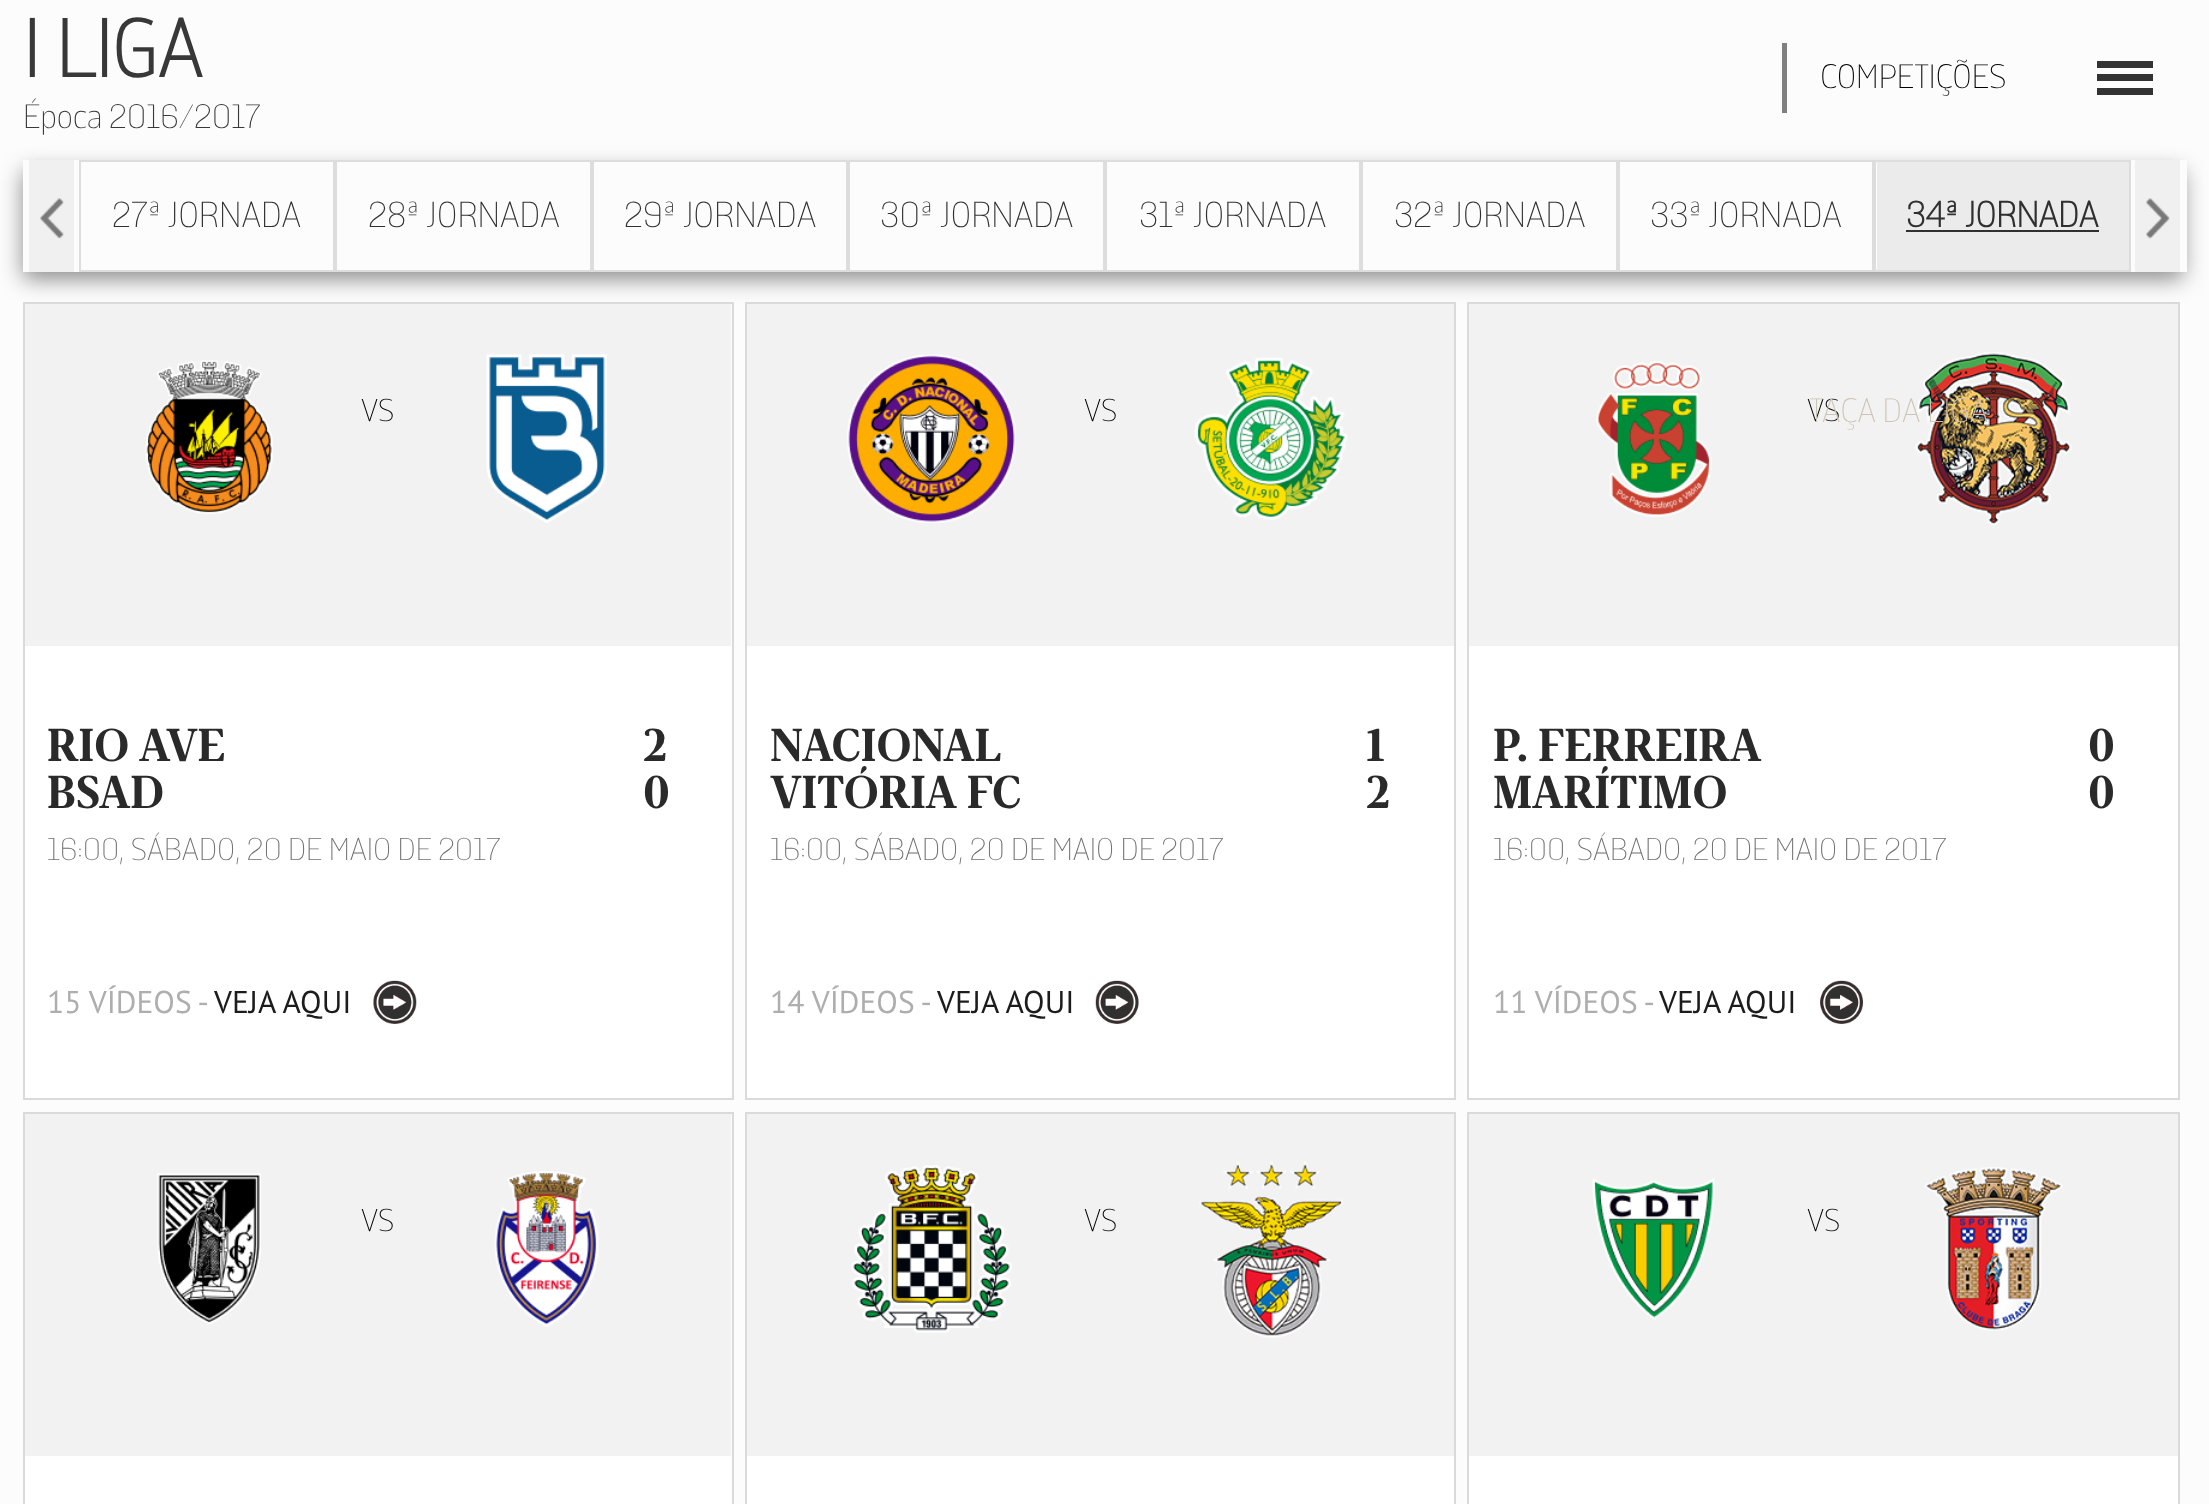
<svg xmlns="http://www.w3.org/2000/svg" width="2209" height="1504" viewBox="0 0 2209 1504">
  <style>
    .t1 { font: bold 81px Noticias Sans; fill: #383838; }
    .t2 { font: 300 33.75px Noticias Sans; fill: #383838; }
    .t3 { font: 300 33.75px Noticias Sans; fill: #000; }
    .t4 { font: 300 31.5px Noticias Sans; fill: #000; }
    .t5 { font: 300 33.75px Noticias Sans; fill: #cdc4b4; }
    .t6 { font: 300 36px Noticias Sans; fill: #303030; }
    .t7 { font: bold 36px Noticias Sans; fill: #303030; }
    .t8 { font: bold 47.25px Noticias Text; fill: #2a2a2a; }
    .t9 { font: 300 31.5px Noticias Sans; fill: #707070; }
    .t10 { font: 31.5px PT Sans; fill: #aeaeae; }
    .t11 { font: 31.5px PT Sans; fill: #1c1c1c; }
  </style>
  <defs>
    <clipPath id="clip1"><path d="M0 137H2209V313H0ZM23 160H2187V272H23Z" clip-rule="evenodd"/></clipPath>
  </defs>
  <rect width="100%" height="100%" fill="#fcfcfc"/>
  <text x="23" y="77" class="t1">I LIGA</text>
  <text x="23" y="128" class="t2">Época 2016/2017</text>
  <rect x="1782" y="43" width="5" height="70" fill="#808080"/>
  <text x="1820" y="88" class="t3">COMPETIÇÕES</text>
  <rect x="2097" y="61" width="56" height="7" fill="#333"/>
  <rect x="2097" y="74" width="56" height="7" fill="#333"/>
  <rect x="2097" y="88" width="56" height="7" fill="#333"/>
  <g clip-path="url(#clip1)">
    <rect x="23" y="171" width="2160" height="108" fill="#00000073" filter="blur(11px)"/>
  </g>
  <rect x="1468" y="303" width="711" height="796" fill="none" stroke="#dadada" stroke-width="2"/>
  <rect x="1469" y="304" width="709" height="342" fill="#f2f2f2"/>
  <text x="1807" y="421" class="t4">VS</text>
  <image x="1915" y="352" width="157" height="174" href="images/10.png"/>
  <text x="1809" y="422" class="t5">TAÇA DA LIGA</text>
  <rect x="29" y="160" width="45" height="112" fill="#f1f0f0"/>
  <image x="40" y="198" width="24" height="41" href="images/1.png"/>
  <rect x="2135" y="160" width="45" height="112" fill="#f1f0f0"/>
  <image x="2146" y="198" width="24" height="41" href="images/2.png"/>
  <rect x="80" y="161" width="254" height="110" fill="none" stroke="#dedddd" stroke-width="2"/>
  <text x="112" y="227" class="t6">27ª JORNADA</text>
  <rect x="336" y="161" width="255" height="110" fill="none" stroke="#dedddd" stroke-width="2"/>
  <text x="368" y="227" class="t6">28ª JORNADA</text>
  <rect x="593" y="161" width="254" height="110" fill="none" stroke="#dedddd" stroke-width="2"/>
  <text x="624" y="227" class="t6">29ª JORNADA</text>
  <rect x="849" y="161" width="255" height="110" fill="none" stroke="#dedddd" stroke-width="2"/>
  <text x="880" y="227" class="t6">30ª JORNADA</text>
  <rect x="1106" y="161" width="254" height="110" fill="none" stroke="#dedddd" stroke-width="2"/>
  <text x="1139" y="227" class="t6">31ª JORNADA</text>
  <rect x="1362" y="161" width="255" height="110" fill="none" stroke="#dedddd" stroke-width="2"/>
  <text x="1394" y="227" class="t6">32ª JORNADA</text>
  <rect x="1619" y="161" width="254" height="110" fill="none" stroke="#dedddd" stroke-width="2"/>
  <text x="1650" y="227" class="t6">33ª JORNADA</text>
  <rect x="1875" y="161" width="255" height="110" fill="none" stroke="#dedddd" stroke-width="2"/>
  <rect x="1877" y="162" width="252" height="108" fill="#ebebeb"/>
  <text x="1906" y="227" class="t7">34ª JORNADA</text>
  <rect x="1906" y="230" width="193" height="2" fill="#303030"/>
  <rect x="24" y="303" width="709" height="796" fill="none" stroke="#dadada" stroke-width="2"/>
  <rect x="25" y="646" width="706" height="452" fill="#fff"/>
  <rect x="25" y="304" width="706" height="342" fill="#f2f2f2"/>
  <image x="145" y="360" width="128" height="154" href="images/3.png"/>
  <text x="361" y="421" class="t4">VS</text>
  <image x="486" y="354" width="121" height="169" href="images/4.png"/>
  <text x="47" y="761" class="t8">RIO AVE</text>
  <text x="643" y="761" class="t8">2</text>
  <text x="47" y="808" class="t8">BSAD</text>
  <text x="643" y="808" class="t8">0</text>
  <text x="47" y="860" class="t9">16:00, SÁBADO, 20 DE MAIO DE 2017</text>
  <image x="373" y="980" width="44" height="44" href="images/5.png"/>
  <text x="47" y="1013" class="t10">15 VÍDEOS -</text>
  <text x="214" y="1013" class="t11">VEJA AQUI</text>
  <rect x="746" y="303" width="709" height="796" fill="none" stroke="#dadada" stroke-width="2"/>
  <rect x="747" y="646" width="707" height="452" fill="#fff"/>
  <rect x="747" y="304" width="707" height="342" fill="#f2f2f2"/>
  <image x="847" y="354" width="169" height="169" href="images/6.png"/>
  <text x="1084" y="421" class="t4">VS</text>
  <image x="1194" y="357" width="154" height="163" href="images/7.png"/>
  <text x="770" y="761" class="t8">NACIONAL</text>
  <text x="1366" y="761" class="t8">1</text>
  <text x="770" y="808" class="t8">VITÓRIA FC</text>
  <text x="1366" y="808" class="t8">2</text>
  <text x="770" y="860" class="t9">16:00, SÁBADO, 20 DE MAIO DE 2017</text>
  <image x="1095" y="980" width="44" height="44" href="images/8.png"/>
  <text x="770" y="1013" class="t10">14 VÍDEOS -</text>
  <text x="937" y="1013" class="t11">VEJA AQUI</text>
  <rect x="1469" y="646" width="709" height="452" fill="#fff"/>
  <image x="1596" y="361" width="116" height="156" href="images/9.png"/>
  <text x="1493" y="761" class="t8">P. FERREIRA</text>
  <text x="2088" y="761" class="t8">0</text>
  <text x="1493" y="808" class="t8">MARÍTIMO</text>
  <text x="2088" y="808" class="t8">0</text>
  <text x="1493" y="860" class="t9">16:00, SÁBADO, 20 DE MAIO DE 2017</text>
  <image x="1820" y="980" width="43" height="44" href="images/11.png"/>
  <text x="1493" y="1013" class="t10">11 VÍDEOS -</text>
  <text x="1659" y="1013" class="t11">VEJA AQUI</text>
  <rect x="24" y="1113" width="709" height="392" fill="none" stroke="#dadada" stroke-width="2"/>
  <rect x="25" y="1456" width="706" height="48" fill="#fff"/>
  <rect x="25" y="1114" width="706" height="342" fill="#f2f2f2"/>
  <image x="157" y="1173" width="104" height="152" href="images/12.png"/>
  <text x="361" y="1231" class="t4">VS</text>
  <image x="494" y="1171" width="105" height="156" href="images/13.png"/>
  <rect x="746" y="1113" width="709" height="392" fill="none" stroke="#dadada" stroke-width="2"/>
  <rect x="747" y="1456" width="707" height="48" fill="#fff"/>
  <rect x="747" y="1114" width="707" height="342" fill="#f2f2f2"/>
  <image x="851" y="1165" width="161" height="168" href="images/14.png"/>
  <text x="1084" y="1231" class="t4">VS</text>
  <image x="1199" y="1161" width="144" height="177" href="images/15.png"/>
  <rect x="1468" y="1113" width="711" height="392" fill="none" stroke="#dadada" stroke-width="2"/>
  <rect x="1469" y="1456" width="709" height="48" fill="#fff"/>
  <rect x="1469" y="1114" width="709" height="342" fill="#f2f2f2"/>
  <image x="1592" y="1178" width="123" height="142" href="images/16.png"/>
  <text x="1807" y="1231" class="t4">VS</text>
  <image x="1924" y="1167" width="139" height="164" href="images/17.png"/>
</svg>
